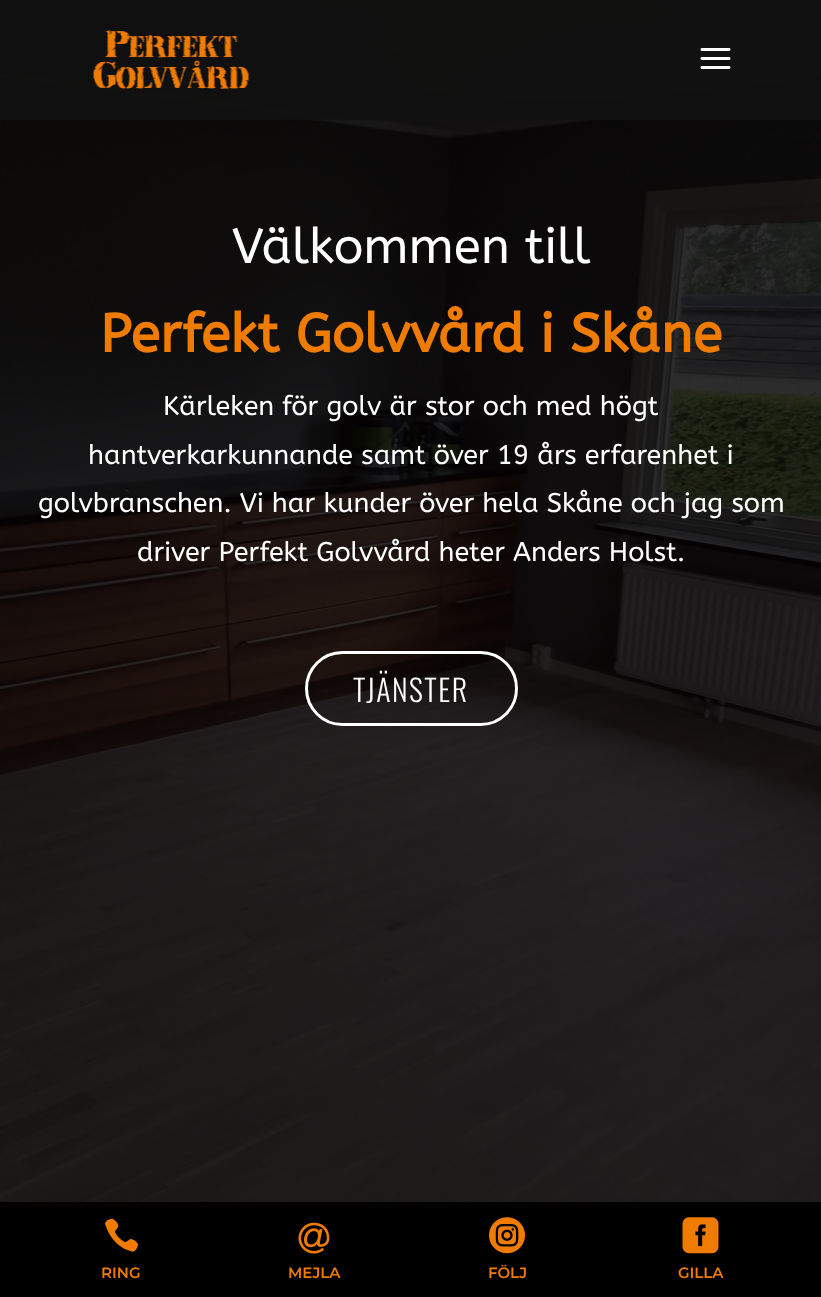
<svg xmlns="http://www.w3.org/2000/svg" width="821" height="1297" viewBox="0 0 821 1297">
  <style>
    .t1 { font: 49.5px ABeeZee; fill: #fff; }
    .t2 { font: bold 54px ABeeZee; fill: #ef7c00; }
    .t3 { font: 27px ABeeZee; fill: #fff; }
    .t4 { font: 300 30px Oswald; letter-spacing: 1.5px; fill: #fff; }
    .t5 { font: 600 15px Montserrat; fill: #ef7c00; }
  </style>
  <rect width="100%" height="100%" fill="#fff"/>
  <image x="0" y="0" width="821" height="1202" href="images/3.png"/>
  <rect x="0" y="0" width="821" height="120" fill="#111111f5"/>
  <image x="93" y="30" width="156" height="59" href="images/1.png"/>
  <image x="700" y="48" width="31" height="21" href="images/2.png"/>
  <text x="232" y="263" class="t1">Välkommen till</text>
  <text x="100" y="352" class="t2">Perfekt Golvvård i Skåne</text>
  <text x="163" y="415" class="t3">Kärleken för golv är stor och med högt</text>
  <text x="88" y="464" class="t3">hantverkarkunnande samt över 19 års erfarenhet i</text>
  <text x="38" y="512" class="t3">golvbranschen. Vi har kunder över hela Skåne och jag som</text>
  <text x="137" y="561" class="t3">driver Perfekt Golvvård heter Anders Holst.</text>
  <rect x="306.5" y="652.5" width="210" height="72" rx="36" fill="none" stroke="#fff" stroke-width="3"/>
  <text x="353" y="702" class="t4">TJÄNSTER</text>
  <rect x="0" y="1202" width="821" height="95" fill="#000"/>
  <image x="105" y="1218" width="33" height="34" href="images/4.png"/>
  <text x="101" y="1278" class="t5">RING</text>
  <image x="298" y="1222" width="32" height="32" href="images/5.png"/>
  <text x="288" y="1278" class="t5">MEJLA</text>
  <image x="489" y="1217" width="36" height="37" href="images/6.png"/>
  <text x="488" y="1278" class="t5">FÖLJ</text>
  <image x="682" y="1217" width="37" height="37" href="images/7.png"/>
  <text x="678" y="1278" class="t5">GILLA</text>
</svg>
